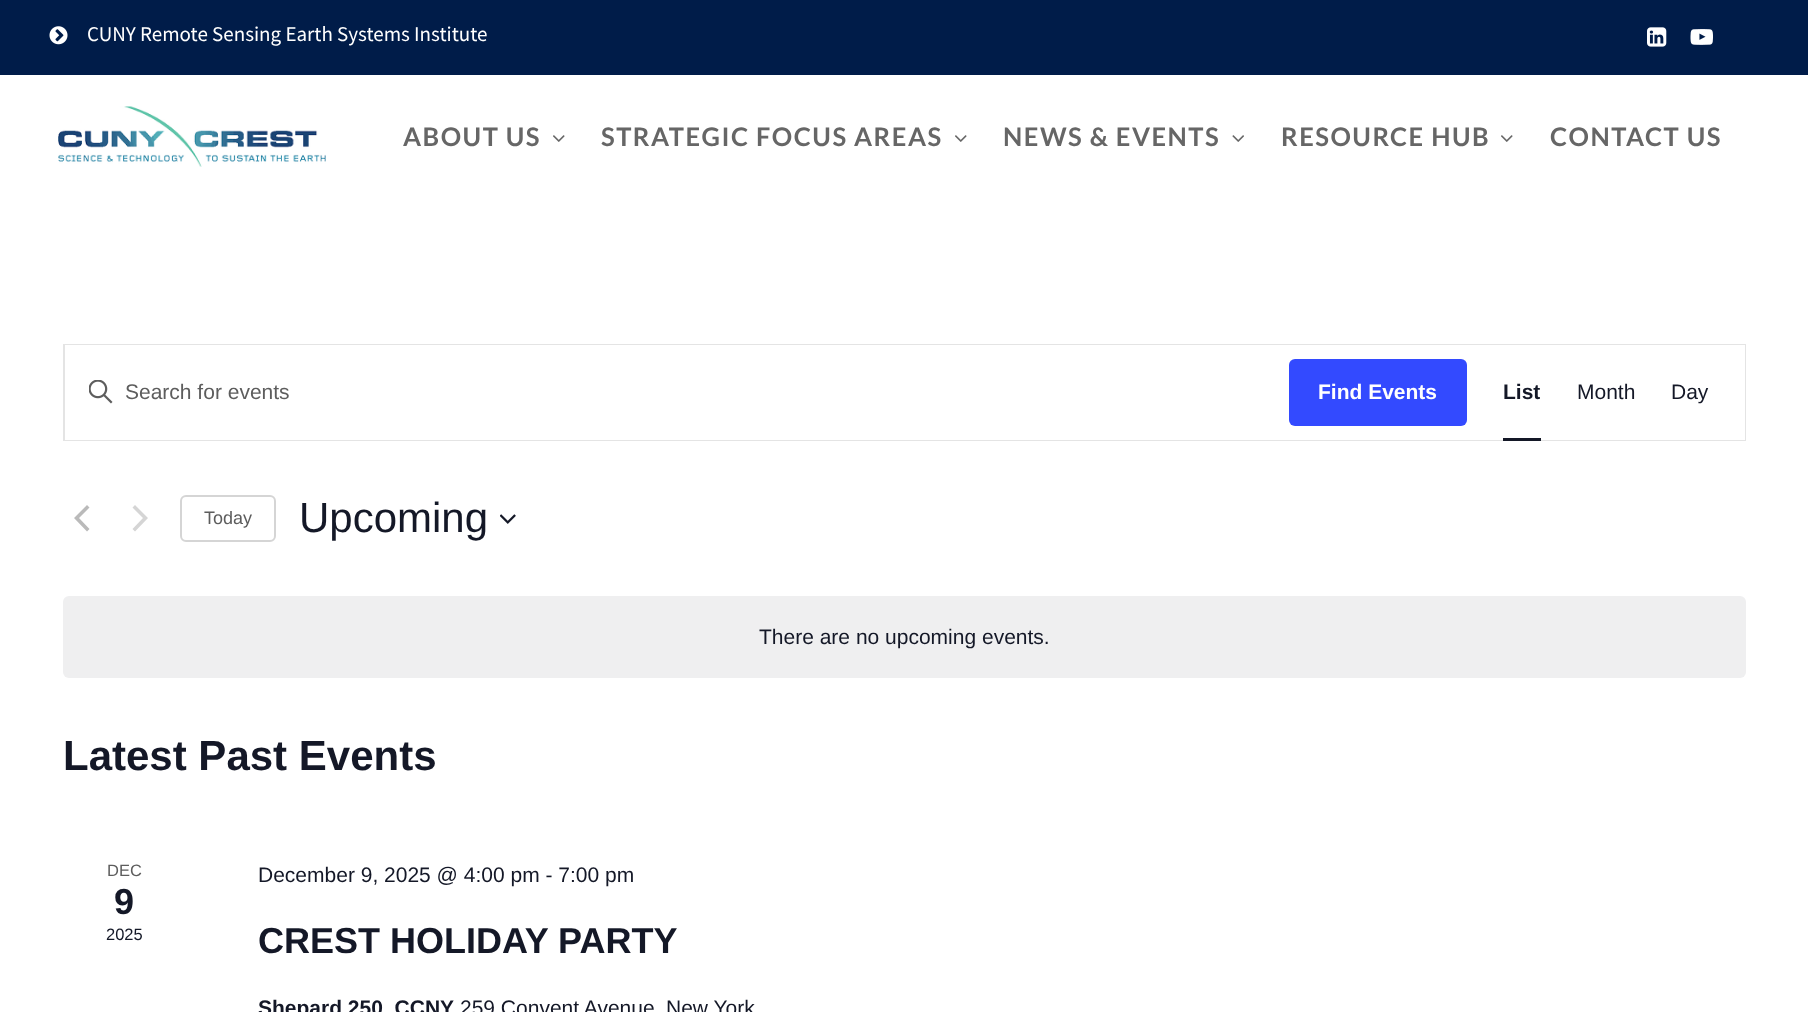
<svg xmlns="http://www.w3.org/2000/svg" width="1808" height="1012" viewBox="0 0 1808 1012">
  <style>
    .t1 { font: 21px Source Sans Pro; fill: #fff; }
    .t2 { font: bold 25.5px Lato; letter-spacing: 1.5px; fill: #666; }
    .t3 { font: 21px Liberation Sans; fill: #5d5d5d; }
    .t4 { font: bold 21px Liberation Sans; fill: #fff; }
    .t5 { font: bold 21px Liberation Sans; fill: #141827; }
    .t6 { font: 21px Liberation Sans; fill: #141827; }
    .t7 { font: 18px Liberation Sans; fill: #5d5d5d; }
    .t8 { font: 42px Liberation Sans; fill: #141827; }
    .t9 { font: bold 42px Liberation Sans; fill: #141827; }
    .t10 { font: 16.5px Liberation Sans; fill: #5d5d5d; }
    .t11 { font: bold 36px Liberation Sans; fill: #141827; }
    .t12 { font: 16.5px Liberation Sans; fill: #141827; }
  </style>
  <rect width="100%" height="100%" fill="#fff"/>
  <rect x="0" y="0" width="1808" height="75" fill="#001c49"/>
  <image x="49" y="26" width="19" height="19" href="images/1.png"/>
  <text x="87" y="41" class="t1">CUNY Remote Sensing Earth Systems Institute</text>
  <image x="1647" y="27" width="20" height="20" href="images/2.png"/>
  <image x="1690" y="29" width="23" height="16" href="images/3.png"/>
  <image x="58" y="106" width="268" height="61" href="images/4.png"/>
  <text x="403" y="146" class="t2">ABOUT US</text>
  <image x="553" y="135" width="12" height="7" href="images/5.png"/>
  <text x="601" y="146" class="t2">STRATEGIC FOCUS AREAS</text>
  <image x="955" y="135" width="12" height="7" href="images/5.png"/>
  <text x="1003" y="146" class="t2">NEWS &amp; EVENTS</text>
  <image x="1232" y="135" width="12" height="7" href="images/6.png"/>
  <text x="1281" y="146" class="t2">RESOURCE HUB</text>
  <image x="1501" y="135" width="12" height="7" href="images/5.png"/>
  <text x="1550" y="146" class="t2">CONTACT US</text>
  <rect x="64" y="345" width="1681" height="95" fill="none" stroke="#e4e4e4" stroke-width="2"/>
  <rect x="65" y="345" width="1680" height="95" fill="#fff"/>
  <image x="89" y="380" width="24" height="24" href="images/7.png"/>
  <text x="125" y="399" class="t3">Search for events</text>
  <rect x="1289" y="359" width="178" height="67" rx="6" fill="#334aff"/>
  <text x="1318" y="399" class="t4">Find Events</text>
  <text x="1503" y="399" class="t5">List</text>
  <rect x="1503" y="438" width="38" height="3" fill="#141827"/>
  <text x="1577" y="399" class="t6">Month</text>
  <text x="1671" y="399" class="t6">Day</text>
  <path d="M89.5 529L87 531.5L74 518L87 505L89.5 507.5L79 518Z" fill="#bababa"/>
  <path d="M132.5 507.5L135 505L148 518L135 531.5L132.5 529L143 518Z" fill="#d5d5d5"/>
  <rect x="181" y="496" width="94" height="45" rx="5" fill="none" stroke="#d5d5d5" stroke-width="2"/>
  <text x="204" y="524" class="t7">Today</text>
  <text x="299" y="532" class="t8">Upcoming</text>
  <image x="500" y="514" width="16" height="10" href="images/8.png"/>
  <rect x="63" y="596" width="1683" height="82" rx="6" fill="#efeff0"/>
  <text x="759" y="644" class="t6">There are no upcoming events.</text>
  <text x="63" y="770" class="t9">Latest Past Events</text>
  <text x="107" y="876" class="t10">DEC</text>
  <text x="114" y="914" class="t11">9</text>
  <text x="106" y="940" class="t12">2025</text>
  <text x="258" y="882" class="t6">December 9, 2025 @ 4:00 pm - 7:00 pm</text>
  <text x="258" y="953" class="t11">CREST HOLIDAY PARTY</text>
  <text x="258" y="1015" class="t5">Shepard 250, CCNY</text>
  <text x="460" y="1015" class="t6">259 Convent Avenue</text>
  <text x="666" y="1015" class="t6">New York</text>
</svg>
